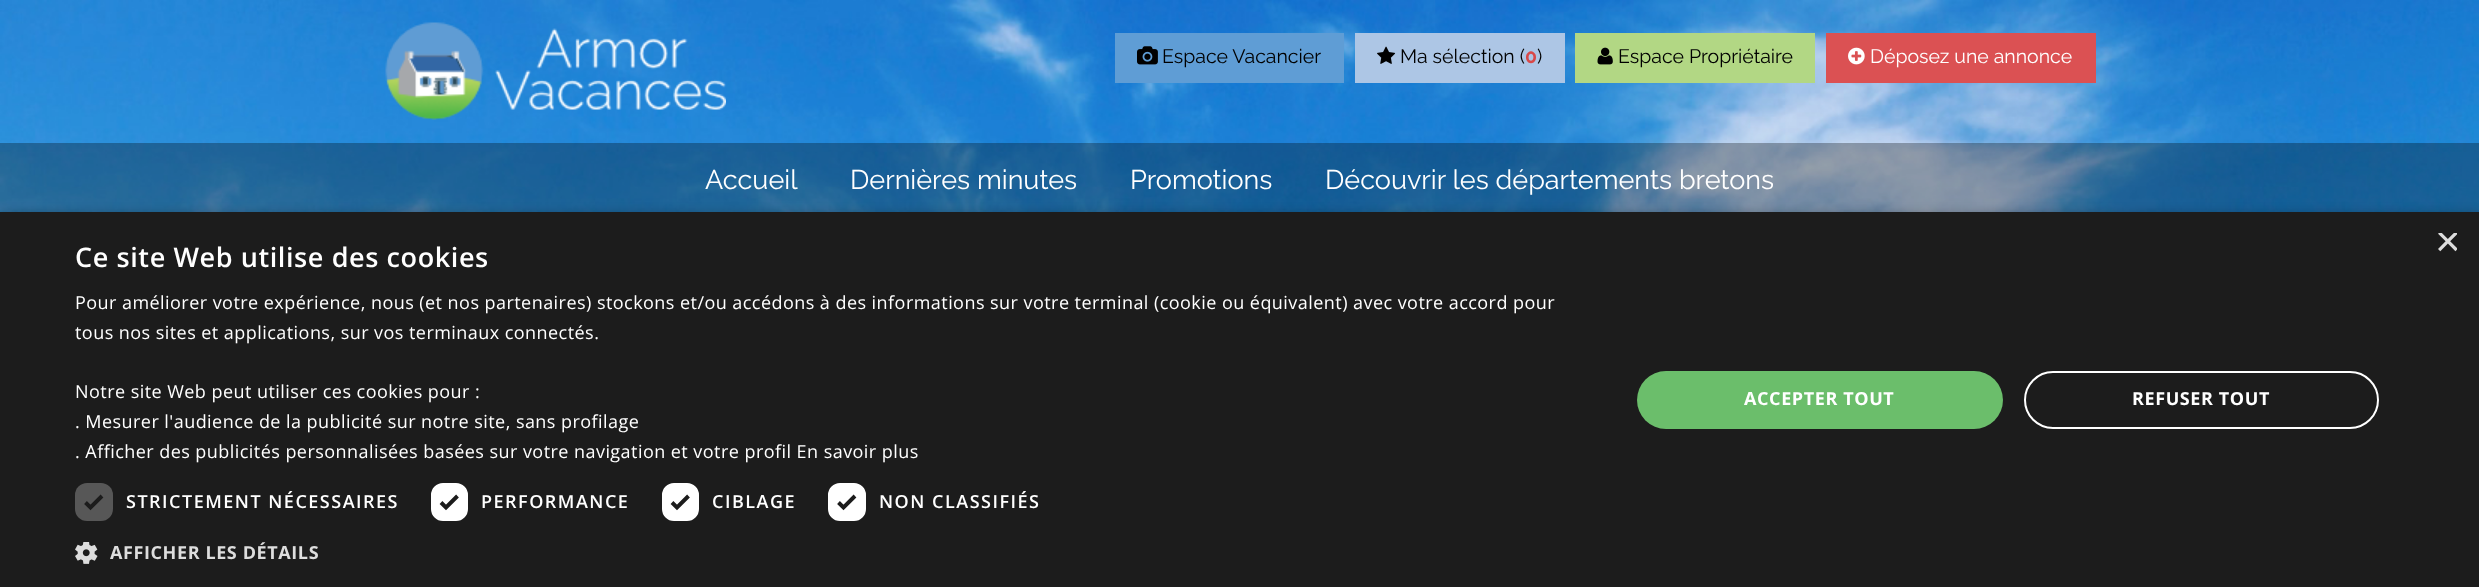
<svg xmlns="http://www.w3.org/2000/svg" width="2479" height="587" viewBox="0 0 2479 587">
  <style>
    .t1 { font: 19.5px Raleway; fill: #000; }
    .t2 { font: bold 19.5px Raleway; fill: #d84848; }
    .t3 { font: 19.5px Raleway; fill: #fff; }
    .t4 { font: 27px Raleway; fill: #fff; }
    .t5 { font: 44px Liberation Sans; fill: #ddd; }
    .t6 { font: 600 27px Open Sans; letter-spacing: 0.6px; fill: #fff; }
    .t7 { font: 18px Open Sans; letter-spacing: 0.45px; fill: #fff; }
    .t8 { font: 600 18px Open Sans; letter-spacing: 1.5px; fill: #fff; }
    .t9 { font: bold 18px Open Sans; letter-spacing: 0.6px; fill: #ddd; }
    .t10 { font: bold 18px Open Sans; letter-spacing: 0.6px; fill: #fff; }
  </style>
  <defs>
    <clipPath id="clip1"><rect x="2435" y="233" width="22" height="22"/></clipPath>
  </defs>
  <rect width="100%" height="100%" fill="#fff"/>
  <image x="0" y="0" width="2479" height="212" href="images/1.png"/>
  <image x="385" y="22" width="341" height="98" href="images/2.png"/>
  <rect x="1115" y="33" width="229" height="50" fill="#5f9dd5"/>
  <image x="1137" y="46" width="21" height="19" href="images/3.png"/>
  <text x="1162" y="63" class="t1">Espace Vacancier</text>
  <rect x="1355" y="33" width="210" height="50" fill="#adc6e5"/>
  <image x="1377" y="46" width="19" height="18" href="images/4.png"/>
  <text x="1400" y="63" class="t1">Ma sélection (</text>
  <text x="1525" y="63" class="t2">0</text>
  <text x="1537" y="63" class="t1">)</text>
  <rect x="1575" y="33" width="240" height="50" fill="#b2d784"/>
  <image x="1597" y="47" width="16" height="18" href="images/5.png"/>
  <text x="1618" y="63" class="t1">Espace Propriétaire</text>
  <rect x="1826" y="33" width="270" height="50" fill="#db5153"/>
  <image x="1848" y="47" width="17" height="18" href="images/6.png"/>
  <text x="1870" y="63" class="t3">Déposez une annonce</text>
  <rect x="0" y="143" width="2479" height="69" fill="#0000004d"/>
  <text x="705" y="189" class="t4">Accueil</text>
  <text x="850" y="189" class="t4">Dernières minutes</text>
  <text x="1130" y="189" class="t4">Promotions</text>
  <text x="1325" y="189" class="t4">Découvrir les départements bretons</text>
  <rect x="2" y="215" width="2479" height="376" fill="#00000059" filter="blur(6px)"/>
  <rect x="0" y="212" width="2479" height="375" fill="#1c1c1c"/>
  <g clip-path="url(#clip1)">
    <text x="2435" y="256" class="t5">×</text>
  </g>
  <text x="75" y="267" class="t6">Ce site Web utilise des cookies</text>
  <text x="75" y="309" class="t7">Pour améliorer votre expérience, nous (et nos partenaires) stockons et/ou accédons à des informations sur votre terminal (cookie ou équivalent) avec votre accord pour</text>
  <text x="75" y="339" class="t7">tous nos sites et applications, sur vos terminaux connectés.</text>
  <text x="75" y="398" class="t7">Notre site Web peut utiliser ces cookies pour :</text>
  <text x="75" y="428" class="t7">. Mesurer l'audience de la publicité sur notre site, sans profilage</text>
  <text x="75" y="458" class="t7">. Afficher des publicités personnalisées basées sur votre navigation et votre profil En savoir plus</text>
  <rect x="75" y="483" width="38" height="38" rx="12" fill="#575757"/>
  <path d="M85.5 502.5L90.5 507.5L102 496" fill="none" stroke="#1c1c1c" stroke-width="3.9"/>
  <text x="126" y="508" class="t8">STRICTEMENT NÉCESSAIRES</text>
  <rect x="432.5" y="484.5" width="34" height="35" rx="10.5" fill="#fff" stroke="#fff" stroke-width="3"/>
  <path d="M441 502.5L446 507.5L457.5 496" fill="none" stroke="#1c1c1c" stroke-width="3.9"/>
  <text x="481" y="508" class="t8">PERFORMANCE</text>
  <rect x="663.5" y="484.5" width="34" height="35" rx="10.5" fill="#fff" stroke="#fff" stroke-width="3"/>
  <path d="M672 502.5L677 507.5L688.5 496" fill="none" stroke="#1c1c1c" stroke-width="3.9"/>
  <text x="712" y="508" class="t8">CIBLAGE</text>
  <rect x="829.5" y="484.5" width="35" height="35" rx="10.5" fill="#fff" stroke="#fff" stroke-width="3"/>
  <path d="M838.5 502.5L843.5 507.5L855 496" fill="none" stroke="#1c1c1c" stroke-width="3.9"/>
  <text x="879" y="508" class="t8">NON CLASSIFIÉS</text>
  <image x="75" y="542" width="23" height="22" href="images/7.png"/>
  <text x="110" y="559" class="t9">AFFICHER LES DÉTAILS</text>
  <rect x="1637" y="371" width="366" height="58" rx="29" fill="#6bbe6b"/>
  <text x="1744" y="405" class="t10">ACCEPTER TOUT</text>
  <rect x="2025" y="372" width="353" height="56" rx="28" fill="none" stroke="#fff" stroke-width="2"/>
  <text x="2132" y="405" class="t10">REFUSER TOUT</text>
</svg>
